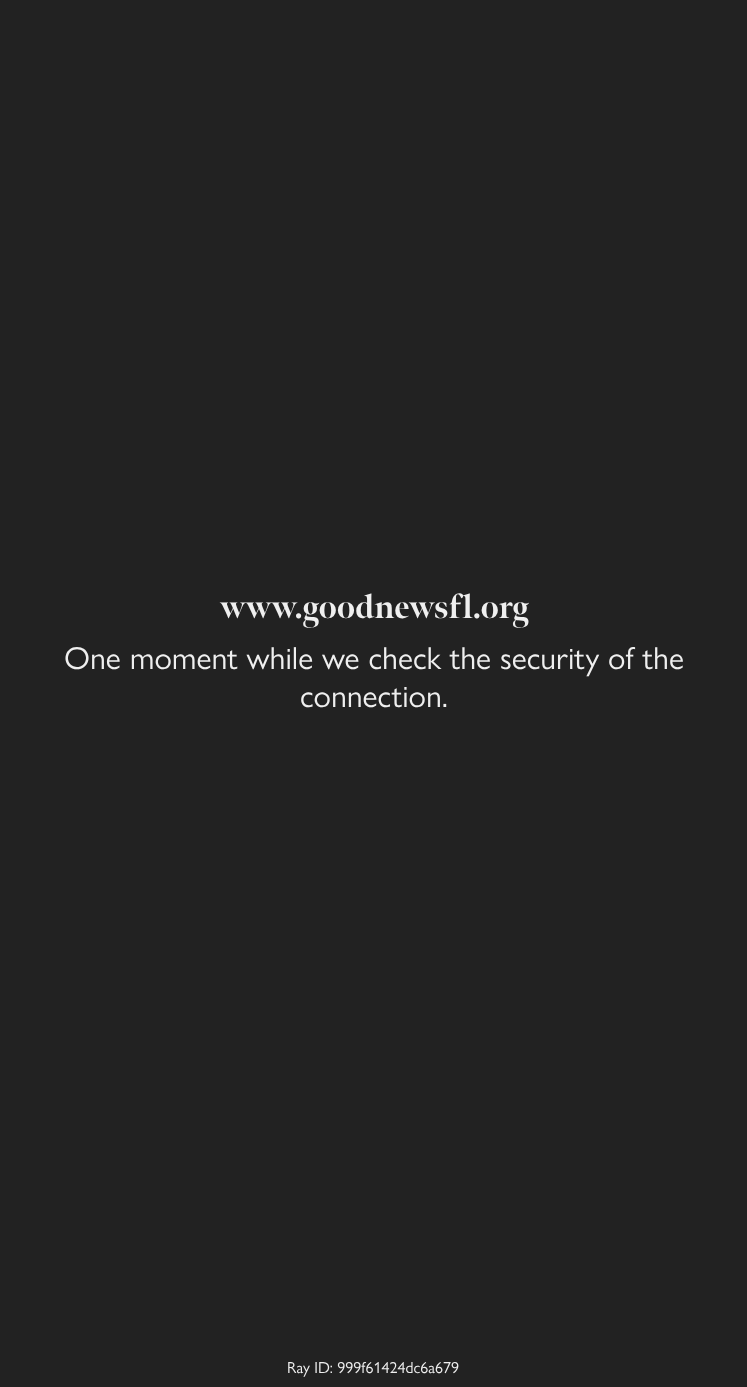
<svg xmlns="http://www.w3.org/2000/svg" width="747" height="1387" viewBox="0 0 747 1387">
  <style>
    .t1 { font: 800 33.25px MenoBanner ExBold; fill: #efefef; }
    .t2 { font: 32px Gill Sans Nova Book; fill: #efefef; }
    .t3 { font: 16px Gill Sans Nova Book; fill: #efefef; }
  </style>
  <rect width="100%" height="100%" fill="#222"/>
  <text x="220" y="618" class="t1">www.goodnewsfl.org</text>
  <text x="64" y="669" class="t2">One moment while we check the security of the</text>
  <text x="300" y="707" class="t2">connection.</text>
  <text x="287" y="1373" class="t3">Ray ID: 999f61424dc6a679</text>
</svg>
